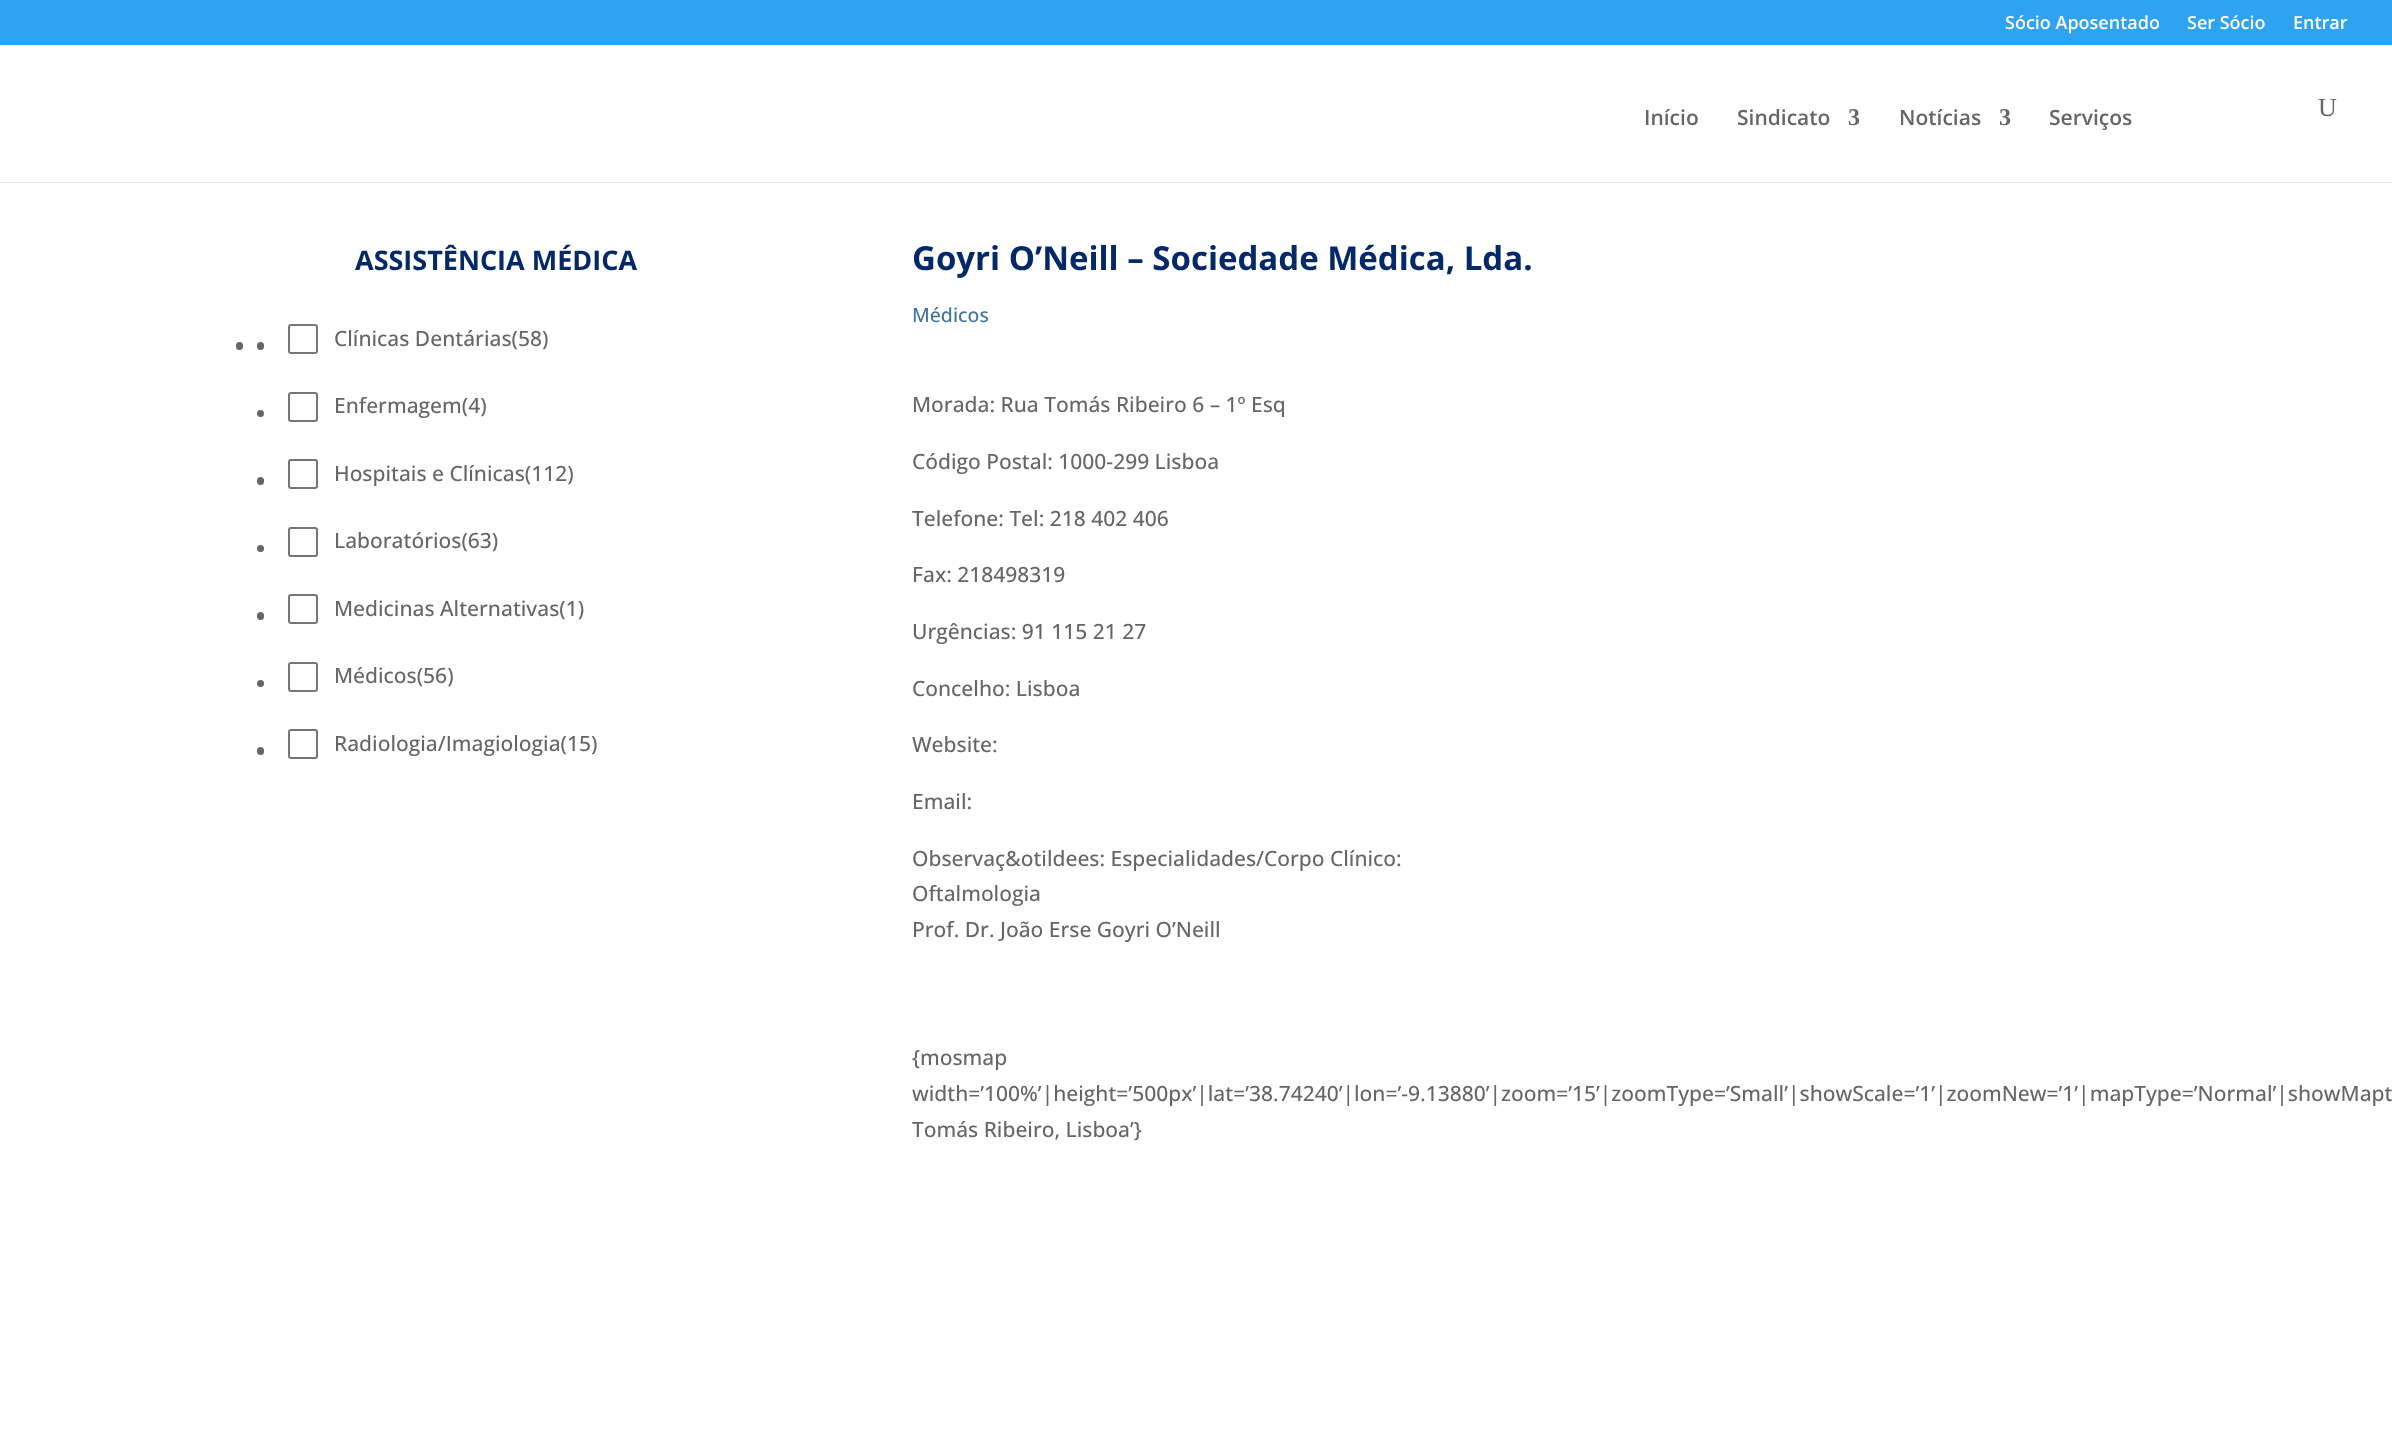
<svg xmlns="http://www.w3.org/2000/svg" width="2392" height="1449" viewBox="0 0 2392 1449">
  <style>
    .t1 { font: 600 18px Open Sans; fill: #fff; }
    .t2 { font: 600 21px Open Sans; fill: #666; }
    .t3 { font: bold 24px Liberation Serif; fill: #666; }
    .t4 { font: 26px Liberation Serif; fill: #666; }
    .t5 { font: bold 27px Open Sans; fill: #042968; }
    .t6 { font: 500 21px Open Sans; fill: #666; }
    .t7 { font: bold 33px Open Sans; fill: #042968; }
    .t8 { font: 500 19.5px Open Sans; fill: #3c749c; }
  </style>
  <rect width="100%" height="100%" fill="#fff"/>
  <rect x="0" y="0" width="2392" height="45" fill="#2ea3f2"/>
  <text x="2005" y="29" class="t1">Sócio Aposentado</text>
  <text x="2187" y="29" class="t1">Ser Sócio</text>
  <text x="2293" y="29" class="t1">Entrar</text>
  <path d="M0 182V183H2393V47H2392V182Z" fill="#e6e6e6"/>
  <text x="1644" y="125" class="t2">Início</text>
  <text x="1737" y="125" class="t2">Sindicato</text>
  <text x="1848" y="125" class="t3">3</text>
  <text x="1899" y="125" class="t2">Notícias</text>
  <text x="1999" y="125" class="t3">3</text>
  <text x="2049" y="125" class="t2">Serviços</text>
  <text x="2318" y="116" class="t4">U</text>
  <text x="355" y="270" class="t5">ASSISTÊNCIA MÉDICA</text>
  <rect x="236" y="342" width="7" height="8" rx="3.5" fill="#666"/>
  <rect x="257" y="342" width="7" height="8" rx="3.5" fill="#666"/>
  <rect x="289" y="325" width="28" height="28" rx="2" fill="none" stroke="#767676" stroke-width="2"/>
  <text x="334" y="346" class="t6">Clínicas Dentárias(58)</text>
  <circle cx="260.5" cy="413.5" r="3.5" fill="#666"/>
  <rect x="289" y="393" width="28" height="28" rx="2" fill="none" stroke="#767676" stroke-width="2"/>
  <text x="334" y="413" class="t6">Enfermagem(4)</text>
  <rect x="257" y="477" width="7" height="8" rx="3.5" fill="#666"/>
  <rect x="289" y="460" width="28" height="28" rx="2" fill="none" stroke="#767676" stroke-width="2"/>
  <text x="334" y="481" class="t6">Hospitais e Clínicas(112)</text>
  <circle cx="260.5" cy="548.5" r="3.5" fill="#666"/>
  <rect x="289" y="528" width="28" height="28" rx="2" fill="none" stroke="#767676" stroke-width="2"/>
  <text x="334" y="548" class="t6">Laboratórios(63)</text>
  <rect x="257" y="612" width="7" height="8" rx="3.5" fill="#666"/>
  <rect x="289" y="595" width="28" height="28" rx="2" fill="none" stroke="#767676" stroke-width="2"/>
  <text x="334" y="616" class="t6">Medicinas Alternativas(1)</text>
  <circle cx="260.5" cy="683.5" r="3.5" fill="#666"/>
  <rect x="289" y="663" width="28" height="28" rx="2" fill="none" stroke="#767676" stroke-width="2"/>
  <text x="334" y="683" class="t6">Médicos(56)</text>
  <rect x="257" y="747" width="7" height="8" rx="3.5" fill="#666"/>
  <rect x="289" y="730" width="28" height="28" rx="2" fill="none" stroke="#767676" stroke-width="2"/>
  <text x="334" y="751" class="t6">Radiologia/Imagiologia(15)</text>
  <text x="912" y="270" class="t7">Goyri O’Neill – Sociedade Médica, Lda.</text>
  <text x="912" y="322" class="t8">Médicos</text>
  <text x="912" y="412" class="t6">Morada: Rua Tomás Ribeiro 6 – 1º Esq</text>
  <text x="912" y="469" class="t6">Código Postal: 1000-299 Lisboa</text>
  <text x="912" y="526" class="t6">Telefone: Tel: 218 402 406</text>
  <text x="912" y="582" class="t6">Fax: 218498319</text>
  <text x="912" y="639" class="t6">Urgências: 91 115 21 27</text>
  <text x="912" y="696" class="t6">Concelho: Lisboa</text>
  <text x="912" y="752" class="t6">Website:</text>
  <text x="912" y="809" class="t6">Email:</text>
  <text x="912" y="866" class="t6">Observaç&amp;otildees: Especialidades/Corpo Clínico:</text>
  <text x="912" y="901" class="t6">Oftalmologia</text>
  <text x="912" y="937" class="t6">Prof. Dr. João Erse Goyri O’Neill</text>
  <text x="912" y="1065" class="t6">{mosmap</text>
  <text x="912" y="1101" class="t6">width=’100%’|height=’500px’|lat=’38.74240’|lon=’-9.13880’|zoom=’15’|zoomType=’Small’|showScale=’1’|zoomNew=’1’|mapType=’Normal’|showMapt</text>
  <text x="912" y="1137" class="t6">Tomás Ribeiro, Lisboa’}</text>
</svg>
